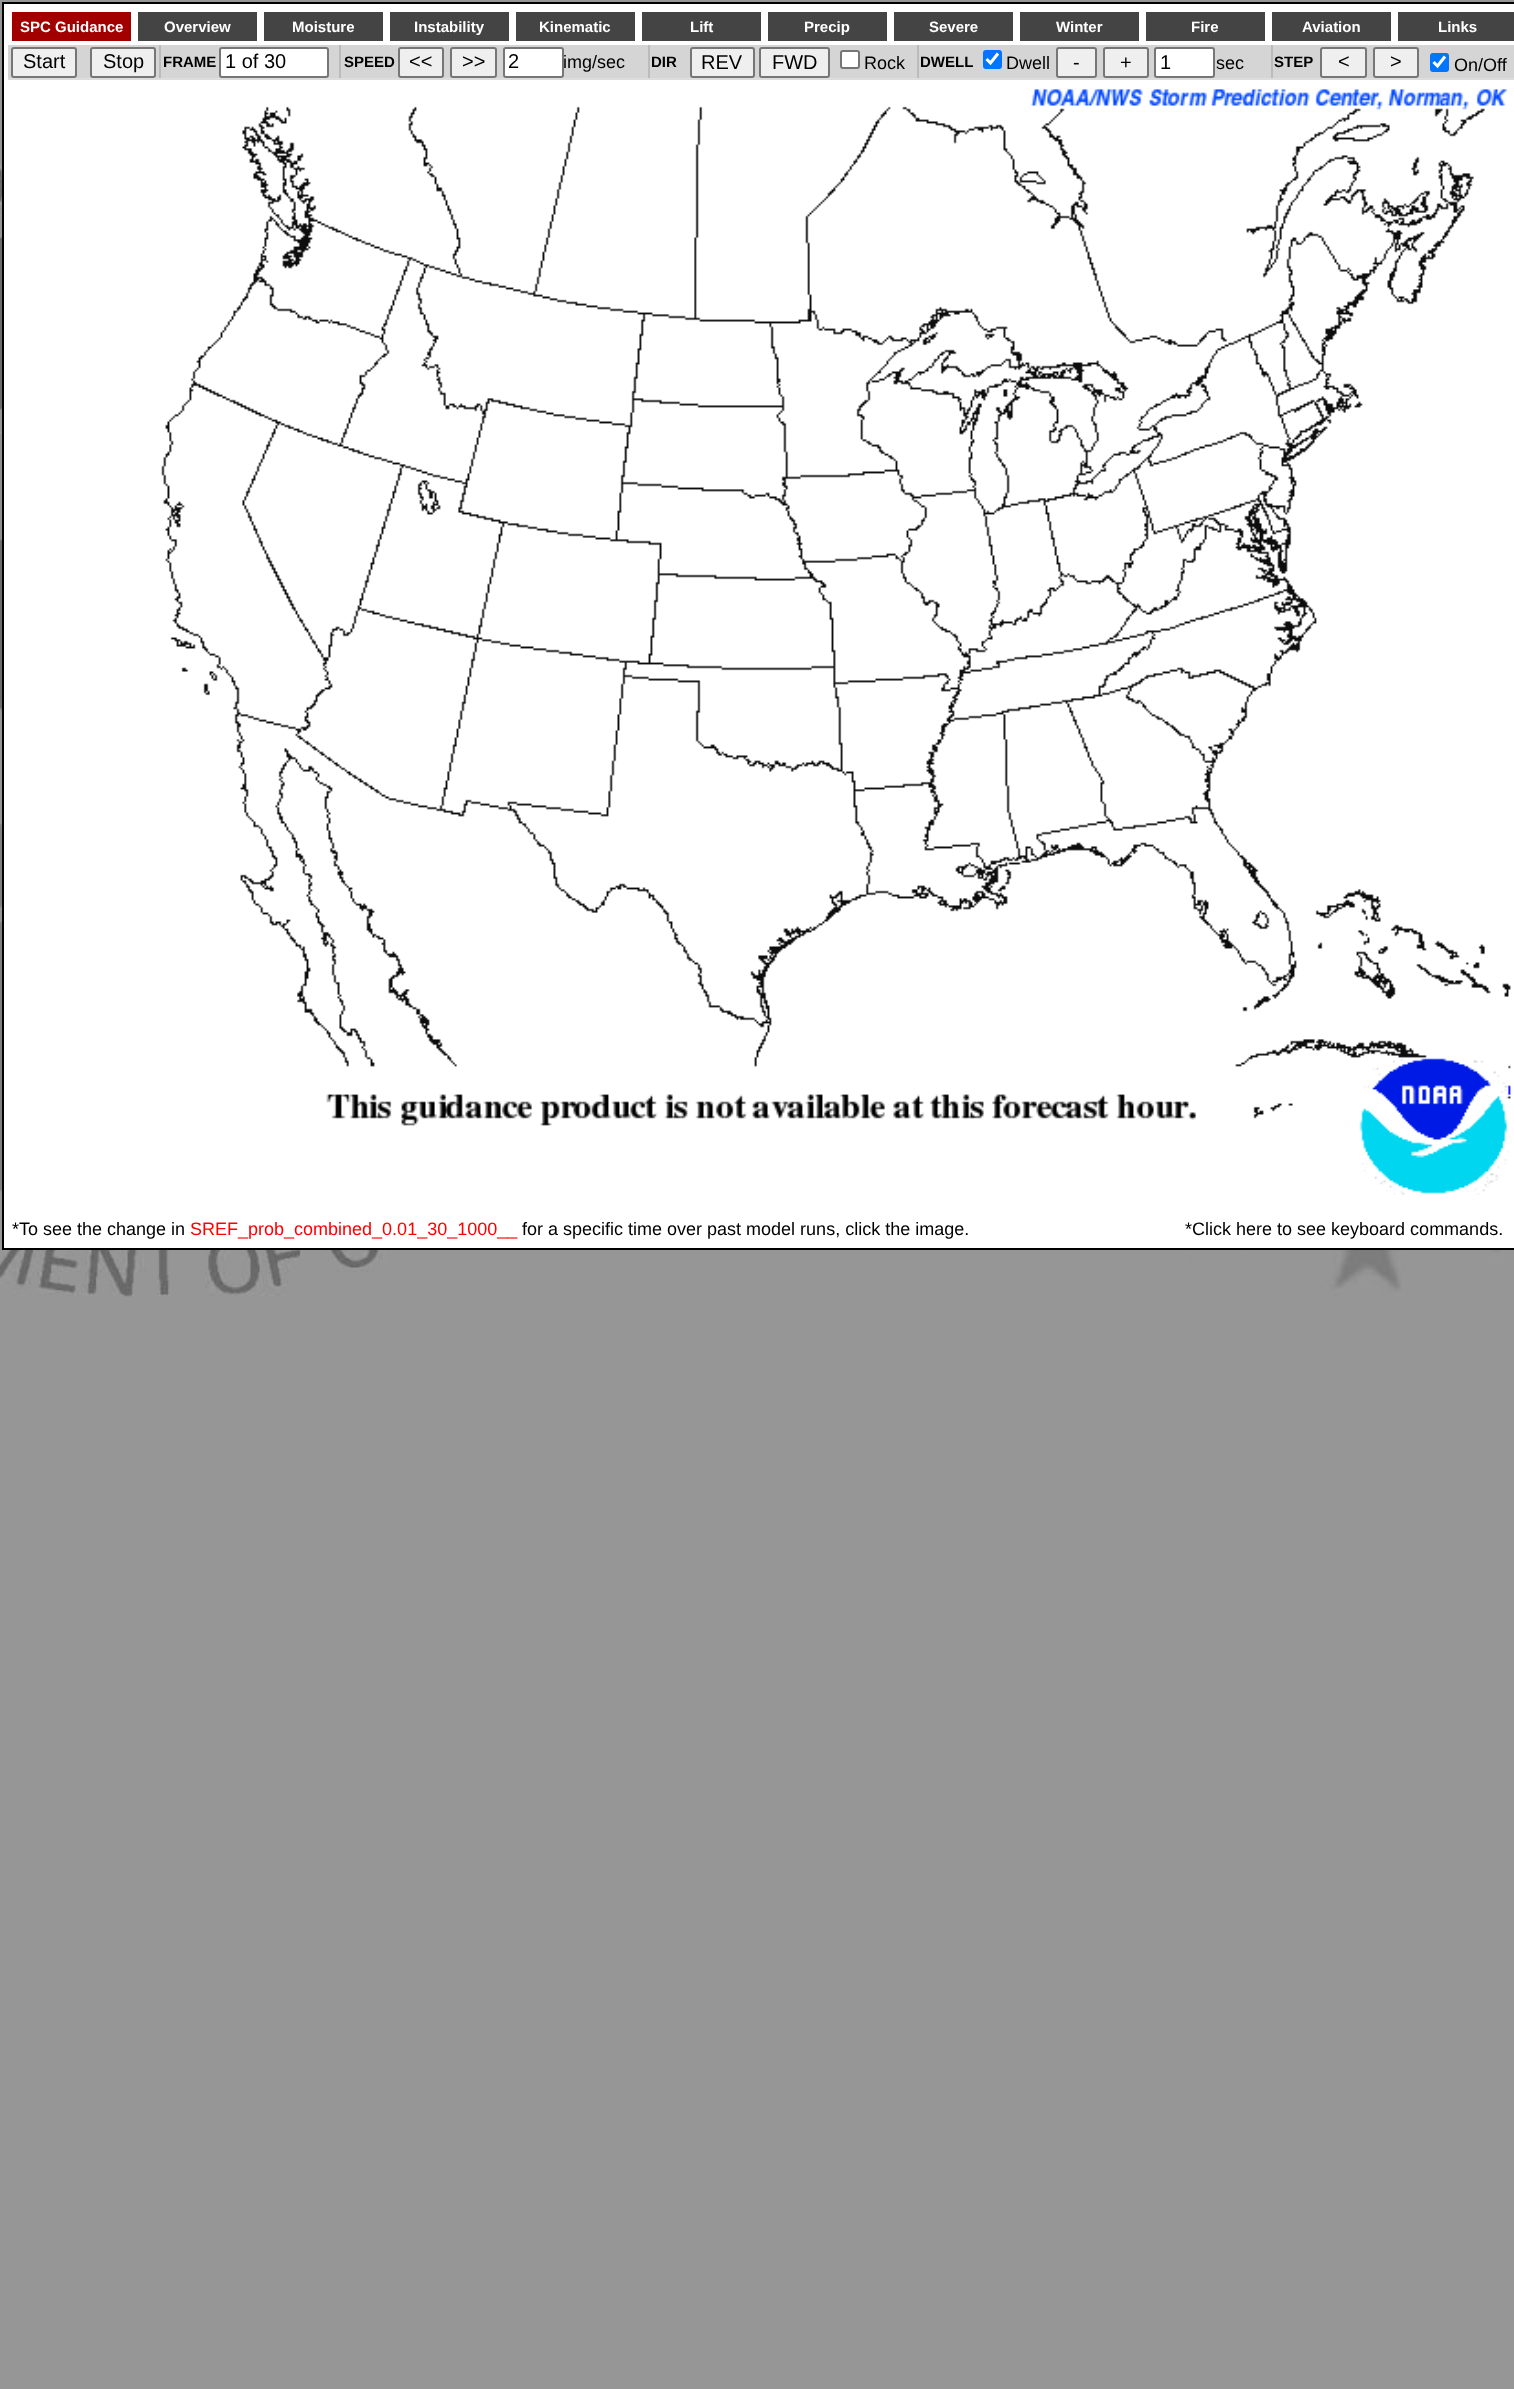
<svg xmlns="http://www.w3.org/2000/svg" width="1514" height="2389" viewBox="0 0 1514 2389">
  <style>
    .t1 { font: bold 15px Liberation Sans; fill: #fff; }
    .t2 { font: 20px Liberation Sans; fill: #000; }
    .t3 { font: bold 15px Liberation Sans; fill: #000; }
    .t4 { font: 18px Liberation Sans; fill: #000; }
    .t5 { font: 18px Liberation Sans; fill: #f00; }
  </style>
  <rect width="100%" height="100%" fill="#969696"/>
  <image x="0" y="123" width="1514" height="1174" href="images/1.png"/>
  <rect x="3" y="3" width="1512" height="1246" fill="#fff" stroke="#000" stroke-width="2"/>
  <rect x="12" y="12" width="119" height="29" fill="#a20000"/>
  <text x="20" y="32" class="t1">SPC Guidance</text>
  <rect x="138" y="12" width="119" height="29" fill="#444"/>
  <text x="164" y="32" class="t1">Overview</text>
  <rect x="264" y="12" width="119" height="29" fill="#444"/>
  <text x="292" y="32" class="t1">Moisture</text>
  <rect x="390" y="12" width="119" height="29" fill="#444"/>
  <text x="414" y="32" class="t1">Instability</text>
  <rect x="516" y="12" width="119" height="29" fill="#444"/>
  <text x="539" y="32" class="t1">Kinematic</text>
  <rect x="642" y="12" width="119" height="29" fill="#444"/>
  <text x="690" y="32" class="t1">Lift</text>
  <rect x="768" y="12" width="119" height="29" fill="#444"/>
  <text x="804" y="32" class="t1">Precip</text>
  <rect x="894" y="12" width="119" height="29" fill="#444"/>
  <text x="929" y="32" class="t1">Severe</text>
  <rect x="1020" y="12" width="119" height="29" fill="#444"/>
  <text x="1056" y="32" class="t1">Winter</text>
  <rect x="1146" y="12" width="119" height="29" fill="#444"/>
  <text x="1191" y="32" class="t1">Fire</text>
  <rect x="1272" y="12" width="119" height="29" fill="#444"/>
  <text x="1302" y="32" class="t1">Aviation</text>
  <rect x="1398" y="12" width="116" height="29" fill="#444"/>
  <text x="1438" y="32" class="t1">Links</text>
  <rect x="8" y="45" width="1506" height="33" fill="#d5d5d5"/>
  <rect x="8" y="78" width="1506" height="2" fill="#ddd"/>
  <rect x="12" y="48" width="64" height="29" rx="2" fill="#efefef" stroke="#767676" stroke-width="2"/>
  <text x="23" y="68" class="t2">Start</text>
  <rect x="91" y="48" width="64" height="29" rx="2" fill="#efefef" stroke="#767676" stroke-width="2"/>
  <text x="103" y="68" class="t2">Stop</text>
  <rect x="159" y="45" width="2" height="33" fill="#bbb"/>
  <text x="163" y="67" class="t3">FRAME</text>
  <rect x="220" y="48" width="108" height="29" rx="2" fill="#fff" stroke="#767676" stroke-width="2"/>
  <text x="225" y="68" class="t2">1 of 30</text>
  <rect x="339" y="45" width="2" height="33" fill="#bbb"/>
  <text x="344" y="67" class="t3">SPEED</text>
  <rect x="399" y="48" width="44" height="29" rx="2" fill="#efefef" stroke="#767676" stroke-width="2"/>
  <text x="409" y="68" class="t2">&lt;&lt;</text>
  <rect x="451" y="48" width="45" height="29" rx="2" fill="#efefef" stroke="#767676" stroke-width="2"/>
  <text x="462" y="68" class="t2">&gt;&gt;</text>
  <rect x="504" y="48" width="59" height="29" rx="2" fill="#fff" stroke="#767676" stroke-width="2"/>
  <text x="508" y="68" class="t2">2</text>
  <text x="563" y="68" class="t4">img/sec</text>
  <rect x="648" y="45" width="2" height="33" fill="#bbb"/>
  <text x="651" y="67" class="t3">DIR</text>
  <rect x="691" y="48" width="63" height="29" rx="2" fill="#efefef" stroke="#767676" stroke-width="2"/>
  <text x="701" y="69" class="t2">REV</text>
  <rect x="760" y="48" width="69" height="29" rx="2" fill="#efefef" stroke="#767676" stroke-width="2"/>
  <text x="772" y="69" class="t2">FWD</text>
  <rect x="841" y="51" width="18" height="17" rx="2" fill="#fff" stroke="#767676" stroke-width="2"/>
  <text x="864" y="69" class="t4">Rock</text>
  <rect x="917" y="45" width="2" height="33" fill="#bbb"/>
  <text x="920" y="67" class="t3">DWELL</text>
  <rect x="983" y="50" width="19" height="19" rx="3" fill="#0075ff"/>
  <path d="M986.5 59L990.5 63L998 53.5" fill="none" stroke="#fff" stroke-width="3.1"/>
  <text x="1006" y="69" class="t4">Dwell</text>
  <rect x="1057" y="48" width="39" height="29" rx="2" fill="#efefef" stroke="#767676" stroke-width="2"/>
  <text x="1073" y="69" class="t2">-</text>
  <rect x="1104" y="48" width="44" height="29" rx="2" fill="#efefef" stroke="#767676" stroke-width="2"/>
  <text x="1120" y="69" class="t2">+</text>
  <rect x="1155" y="48" width="59" height="29" rx="2" fill="#fff" stroke="#767676" stroke-width="2"/>
  <text x="1160" y="69" class="t2">1</text>
  <text x="1216" y="69" class="t4">sec</text>
  <rect x="1271" y="45" width="2" height="33" fill="#bbb"/>
  <text x="1274" y="67" class="t3">STEP</text>
  <rect x="1321" y="48" width="45" height="29" rx="2" fill="#efefef" stroke="#767676" stroke-width="2"/>
  <text x="1338" y="68" class="t2">&lt;</text>
  <rect x="1374" y="48" width="44" height="29" rx="2" fill="#efefef" stroke="#767676" stroke-width="2"/>
  <text x="1390" y="68" class="t2">&gt;</text>
  <rect x="1430" y="53" width="19" height="19" rx="3" fill="#0075ff"/>
  <path d="M1433.5 62L1437.5 66L1445 56.5" fill="none" stroke="#fff" stroke-width="3.1"/>
  <text x="1454" y="71" class="t4">On/Off</text>
  <image x="161" y="89" width="1350" height="1106" href="images/2.png"/>
  <text x="12" y="1235" class="t4">*To see the change in</text>
  <text x="190" y="1235" class="t5">SREF_prob_combined_0.01_30_1000__</text>
  <text x="522" y="1235" class="t4">for a specific time over past model runs, click the image.</text>
  <text x="1185" y="1235" class="t4">*Click here to see keyboard commands.</text>
</svg>
